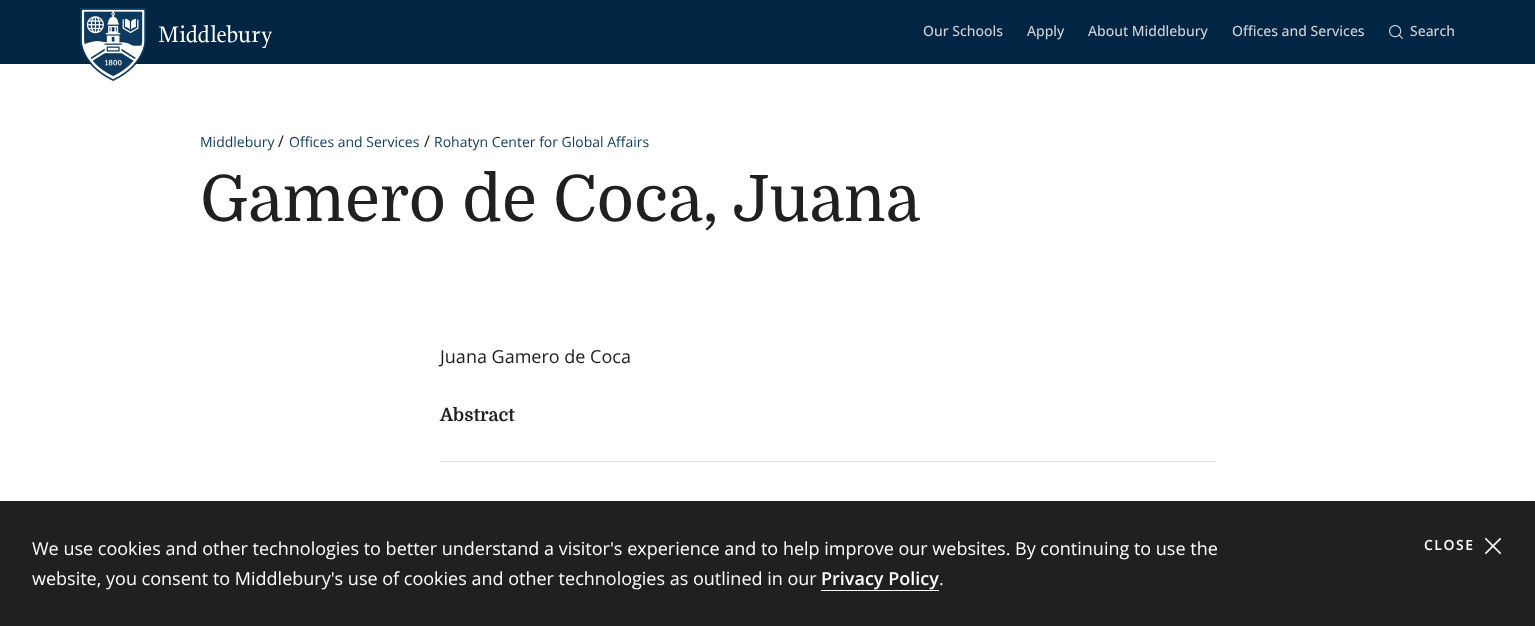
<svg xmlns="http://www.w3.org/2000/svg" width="1535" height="626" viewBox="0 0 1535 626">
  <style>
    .t1 { font: 500 14px Open Sans; fill: #ccd3d9; }
    .t2 { font: 14px Open Sans; fill: #0d395f; }
    .t3 { font: 16px Open Sans; fill: #202020; }
    .t4 { font: 64px Domine; fill: #202020; }
    .t5 { font: 18px Open Sans; fill: #202020; }
    .t6 { font: bold 18px Domine; fill: #202020; }
    .t7 { font: 18px Open Sans; fill: #fff; }
    .t8 { font: 600 18px Open Sans; fill: #fff; }
    .t9 { font: 600 14px Open Sans; letter-spacing: 1.5px; fill: #fff; }
  </style>
  <rect width="100%" height="100%" fill="#fff"/>
  <rect x="0" y="0" width="1535" height="64" fill="#022543"/>
  <image x="80" y="8" width="67" height="73" href="images/1.png"/>
  <image x="159" y="25" width="114" height="23" href="images/2.png"/>
  <text x="923" y="36" class="t1">Our Schools</text>
  <text x="1027" y="36" class="t1">Apply</text>
  <text x="1088" y="36" class="t1">About Middlebury</text>
  <text x="1232" y="36" class="t1">Offices and Services</text>
  <image x="1389" y="25" width="14" height="14" href="images/3.png"/>
  <text x="1410" y="36" class="t1">Search</text>
  <text x="200" y="147" class="t2">Middlebury</text>
  <text x="278" y="147" class="t3">/</text>
  <text x="289" y="147" class="t2">Offices and Services</text>
  <text x="424" y="147" class="t3">/</text>
  <text x="434" y="147" class="t2">Rohatyn Center for Global Affairs</text>
  <text x="200" y="221" class="t4">Gamero de Coca, Juana</text>
  <text x="440" y="363" class="t5">Juana Gamero de Coca</text>
  <text x="440" y="421" class="t6">Abstract</text>
  <rect x="440" y="461" width="776" height="1" fill="#dedede"/>
  <rect x="0" y="501" width="1535" height="125" fill="#202020"/>
  <text x="32" y="555" class="t7">We use cookies and other technologies to better understand a visitor's experience and to help improve our websites. By continuing to use the</text>
  <text x="32" y="585" class="t7">website, you consent to Middlebury's use of cookies and other technologies as outlined in our</text>
  <text x="821" y="585" class="t8">Privacy Policy</text>
  <rect x="821" y="590" width="118" height="1" fill="#fff"/>
  <text x="939" y="585" class="t7">.</text>
  <text x="1424" y="550" class="t9">CLOSE</text>
  <image x="1484" y="537" width="18" height="18" href="images/4.png"/>
</svg>
